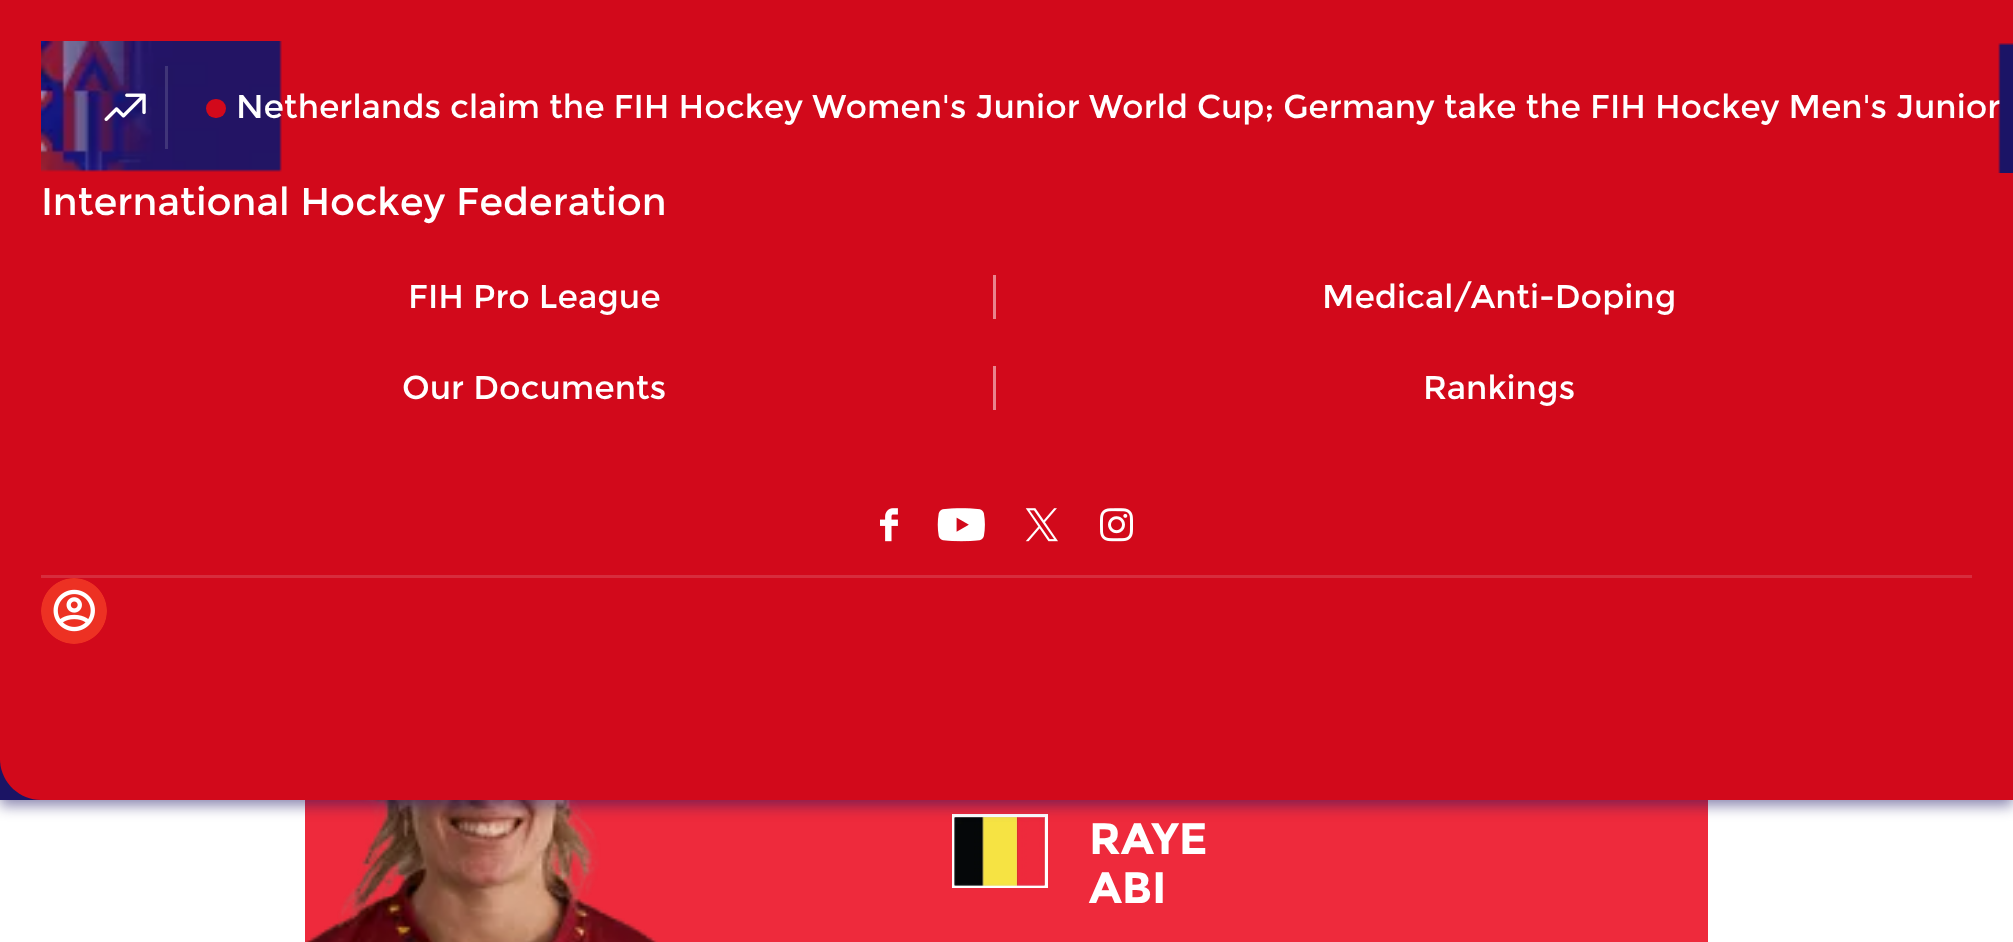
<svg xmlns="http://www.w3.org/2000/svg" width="2013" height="942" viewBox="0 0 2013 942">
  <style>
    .t1 { font: 33px Montserrat; fill: #fff; }
    .t2 { font: 38.5px Montserrat; fill: #fff; }
    .t3 { font: bold 44px Montserrat; fill: #fff; }
  </style>
  <rect width="100%" height="100%" fill="#fff"/>
  <rect x="305" y="800" width="1403" height="142" fill="#ee2a3c"/>
  <image x="305" y="800" width="353" height="142" href="images/9.png"/>
  <rect x="953.5" y="815.5" width="93" height="71" fill="none" stroke="#fff" stroke-width="3"/>
  <image x="954" y="817" width="91" height="69" href="images/10.png"/>
  <rect x="0" y="6" width="2013" height="800" fill="#1b146480" filter="blur(7px)"/>
  <rect x="0" y="759" width="41" height="41" fill="#1b1464"/>
  <path d="M0 0H2013V800H41C18.5 800 0 781.5 0 759Z" fill="#d2091b"/>
  <image x="41" y="41" width="241" height="131" href="images/1.png"/>
  <rect x="165" y="66" width="3" height="83" fill="#f4f4f426"/>
  <image x="104" y="93" width="42" height="28" href="images/2.png"/>
  <rect x="206" y="99" width="20" height="19" rx="9.5" fill="#d2091b"/>
  <image x="1998" y="43" width="15" height="130" href="images/3.png"/>
  <text x="236" y="118" class="t1">Netherlands claim the FIH Hockey Women's Junior World Cup; Germany take the FIH Hockey Men's Junior</text>
  <text x="41" y="215" class="t2">International Hockey Federation</text>
  <text x="408" y="308" class="t1">FIH Pro League</text>
  <rect x="993" y="275" width="3" height="44" fill="#e9848d"/>
  <text x="1322" y="308" class="t1">Medical/Anti-Doping</text>
  <text x="402" y="399" class="t1">Our Documents</text>
  <rect x="993" y="366" width="3" height="44" fill="#e9848d"/>
  <text x="1423" y="399" class="t1">Rankings</text>
  <rect x="41" y="575" width="1931" height="3" fill="#d72c3c"/>
  <image x="880" y="508" width="18" height="34" href="images/4.png"/>
  <image x="937" y="508" width="48" height="34" href="images/5.png"/>
  <image x="1025" y="508" width="33" height="34" href="images/6.png"/>
  <image x="1100" y="508" width="33" height="34" href="images/7.png"/>
  <image x="41" y="578" width="66" height="66" href="images/8.png"/>
  <text x="1089" y="854" class="t3">RAYE</text>
  <text x="1089" y="903" class="t3">ABI</text>
</svg>
